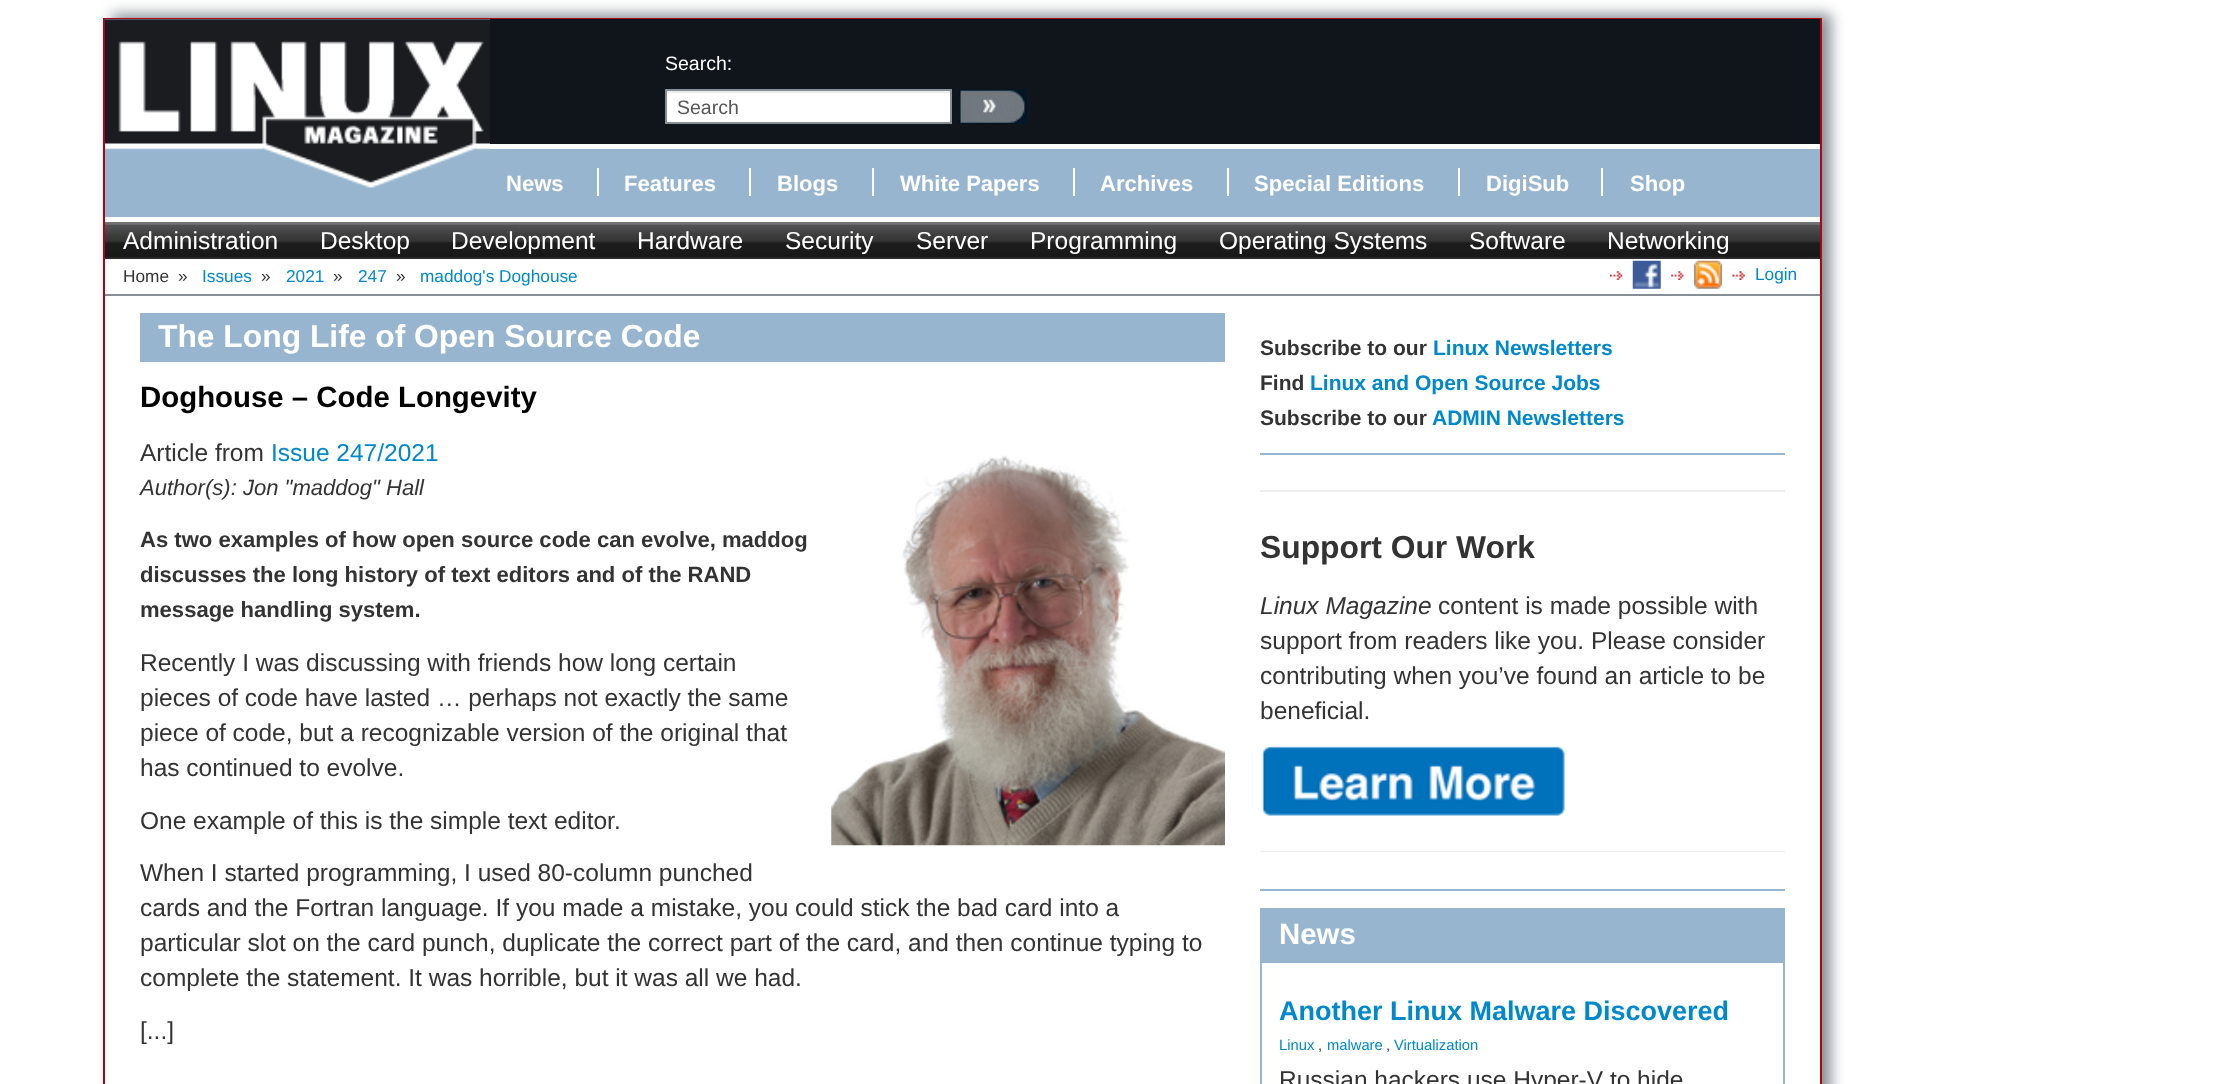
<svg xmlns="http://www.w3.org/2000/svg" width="2236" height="1084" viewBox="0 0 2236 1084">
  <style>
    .t1 { font: 19.5px Liberation Sans; fill: #fff; }
    .t2 { font: 19.5px Liberation Sans; fill: #555; }
    .t3 { font: bold 22.05px Liberation Sans; fill: #fff; }
    .t4 { font: 24.5px Liberation Sans; fill: #fff; }
    .t5 { font: 17.25px Liberation Sans; fill: #333; }
    .t6 { font: 17.25px Liberation Sans; fill: #08c; }
    .t7 { font: bold 31.8px Liberation Sans; fill: #fff; }
    .t8 { font: bold 29.4px Liberation Sans; fill: #000; }
    .t9 { font: 24.5px Liberation Sans; fill: #333; }
    .t10 { font: 24.5px Liberation Sans; fill: #08c; }
    .t11 { font: italic 22.05px Liberation Sans; fill: #333; }
    .t12 { font: bold 22.05px Liberation Sans; fill: #333; }
    .t13 { font: bold 21px Liberation Sans; fill: #333; }
    .t14 { font: bold 21px Liberation Sans; fill: #08c; }
    .t15 { font: bold 31.8px Liberation Sans; fill: #333; }
    .t16 { font: italic 24.5px Liberation Sans; fill: #333; }
    .t17 { font: bold 29.4px Liberation Sans; fill: #fff; }
    .t18 { font: bold 27px Liberation Sans; fill: #08c; }
    .t19 { font: 14.75px Liberation Sans; fill: #08c; }
    .t20 { font: 14.75px Liberation Sans; fill: #333; }
  </style>
  <defs>
    <linearGradient id="g1" gradientUnits="userSpaceOnUse" x1="963" y1="222" x2="963" y2="259"><stop offset="0" stop-color="#737373"/><stop offset="0.03" stop-color="#737373"/><stop offset="0.07" stop-color="#676767"/><stop offset="0.1" stop-color="#4d4c4f"/><stop offset="0.13" stop-color="#504f52"/><stop offset="0.37" stop-color="#3d3c3d"/><stop offset="0.5" stop-color="#363536"/><stop offset="0.53" stop-color="#2f2e2f"/><stop offset="0.57" stop-color="#1d1d1d"/><stop offset="0.93" stop-color="#181818"/><stop offset="0.97" stop-color="#2f2e2e"/><stop offset="1" stop-color="#252424"/></linearGradient>
  </defs>
  <rect width="100%" height="100%" fill="#fff"/>
  <rect x="112" y="14" width="1719" height="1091" fill="#878f96" filter="blur(7px)"/>
  <rect x="105" y="221" width="1715" height="863" fill="#fff"/>
  <rect x="104" y="19" width="1717" height="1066" fill="none" stroke="#ae0417" stroke-width="2"/>
  <rect x="490" y="19" width="1330" height="125" fill="#0f151a"/>
  <rect x="105" y="19" width="385" height="198" fill="#97b5cf"/>
  <rect x="105" y="217" width="1715" height="4" fill="#fff"/>
  <image x="105" y="19" width="385" height="169" href="images/1.png"/>
  <text x="665" y="70" class="t1">Search:</text>
  <rect x="667" y="93" width="283" height="29" fill="#fff"/>
  <rect x="667" y="91" width="283" height="2" fill="#ececec"/>
  <rect x="666" y="90" width="285" height="33" fill="none" stroke="#878f96" stroke-width="2"/>
  <text x="677" y="114" class="t2">Search</text>
  <image x="959" y="89" width="68" height="35" href="images/2.png"/>
  <rect x="490" y="149" width="1330" height="68" fill="#97b5cf"/>
  <rect x="490" y="144" width="1330" height="5" fill="#fff"/>
  <text x="506" y="191" class="t3">News</text>
  <rect x="597" y="168" width="2" height="28" fill="#fff"/>
  <text x="624" y="191" class="t3">Features</text>
  <rect x="749" y="168" width="2" height="28" fill="#fff"/>
  <text x="777" y="191" class="t3">Blogs</text>
  <rect x="872" y="168" width="2" height="28" fill="#fff"/>
  <text x="900" y="191" class="t3">White Papers</text>
  <rect x="1073" y="168" width="2" height="28" fill="#fff"/>
  <text x="1100" y="191" class="t3">Archives</text>
  <rect x="1227" y="168" width="2" height="28" fill="#fff"/>
  <text x="1254" y="191" class="t3">Special Editions</text>
  <rect x="1458" y="168" width="2" height="28" fill="#fff"/>
  <text x="1486" y="191" class="t3">DigiSub</text>
  <rect x="1601" y="168" width="2" height="28" fill="#fff"/>
  <text x="1630" y="191" class="t3">Shop</text>
  <rect x="105" y="222" width="1715" height="37" fill="url(#g1)"/>
  <text x="123" y="249" class="t4">Administration</text>
  <text x="320" y="249" class="t4">Desktop</text>
  <text x="451" y="249" class="t4">Development</text>
  <text x="637" y="249" class="t4">Hardware</text>
  <text x="785" y="249" class="t4">Security</text>
  <text x="916" y="249" class="t4">Server</text>
  <text x="1030" y="249" class="t4">Programming</text>
  <text x="1219" y="249" class="t4">Operating Systems</text>
  <text x="1469" y="249" class="t4">Software</text>
  <text x="1607" y="249" class="t4">Networking</text>
  <rect x="105" y="294" width="1715" height="2" fill="#878f96"/>
  <text x="123" y="282" class="t5">Home</text>
  <text x="178" y="282" class="t5">»</text>
  <text x="202" y="282" class="t6">Issues</text>
  <text x="261" y="282" class="t5">»</text>
  <text x="286" y="282" class="t6">2021</text>
  <text x="333" y="282" class="t5">»</text>
  <text x="358" y="282" class="t6">247</text>
  <text x="396" y="282" class="t5">»</text>
  <text x="420" y="282" class="t6">maddog's Doghouse</text>
  <image x="1610" y="271" width="13" height="9" href="images/3.png"/>
  <image x="1632" y="260" width="29" height="29" href="images/4.png"/>
  <image x="1671" y="271" width="13" height="9" href="images/5.png"/>
  <image x="1694" y="260" width="28" height="29" href="images/6.png"/>
  <image x="1732" y="271" width="13" height="9" href="images/7.png"/>
  <text x="1755" y="280" class="t6">Login</text>
  <rect x="140" y="313" width="1085" height="49" fill="#97b5cf"/>
  <text x="158" y="347" class="t7">The Long Life of Open Source Code</text>
  <text x="140" y="407" class="t8">Doghouse – Code Longevity</text>
  <text x="140" y="461" class="t9">Article from</text>
  <text x="271" y="461" class="t10">Issue 247/2021</text>
  <text x="140" y="495" class="t11">Author(s): Jon "maddog" Hall</text>
  <image x="831" y="455" width="394" height="391" href="images/8.png"/>
  <text x="140" y="547" class="t12">As two examples of how open source code can evolve, maddog</text>
  <text x="140" y="582" class="t12">discusses the long history of text editors and of the RAND</text>
  <text x="140" y="617" class="t12">message handling system.</text>
  <text x="140" y="671" class="t9">Recently I was discussing with friends how long certain</text>
  <text x="140" y="706" class="t9">pieces of code have lasted … perhaps not exactly the same</text>
  <text x="140" y="741" class="t9">piece of code, but a recognizable version of the original that</text>
  <text x="140" y="776" class="t9">has continued to evolve.</text>
  <text x="140" y="829" class="t9">One example of this is the simple text editor.</text>
  <text x="140" y="881" class="t9">When I started programming, I used 80-column punched</text>
  <text x="140" y="916" class="t9">cards and the Fortran language. If you made a mistake, you could stick the bad card into a</text>
  <text x="140" y="951" class="t9">particular slot on the card punch, duplicate the correct part of the card, and then continue typing to</text>
  <text x="140" y="986" class="t9">complete the statement. It was horrible, but it was all we had.</text>
  <text x="140" y="1039" class="t9">[...]</text>
  <rect x="1260" y="453" width="525" height="2" fill="#97b5cf"/>
  <text x="1260" y="355" class="t13">Subscribe to our</text>
  <text x="1433" y="355" class="t14">Linux Newsletters</text>
  <text x="1260" y="390" class="t13">Find</text>
  <text x="1310" y="390" class="t14">Linux and Open Source Jobs</text>
  <text x="1260" y="425" class="t13">Subscribe to our</text>
  <text x="1432" y="425" class="t14">ADMIN Newsletters</text>
  <rect x="1260" y="889" width="525" height="2" fill="#97b5cf"/>
  <rect x="1260" y="490" width="525" height="2" fill="#eee"/>
  <text x="1260" y="558" class="t15">Support Our Work</text>
  <text x="1260" y="614" class="t16">Linux Magazine</text>
  <text x="1438" y="614" class="t9">content is made possible with</text>
  <text x="1260" y="649" class="t9">support from readers like you. Please consider</text>
  <text x="1260" y="684" class="t9">contributing when you’ve found an article to be</text>
  <text x="1260" y="719" class="t9">beneficial.</text>
  <image x="1261" y="745" width="304" height="71" href="images/9.png"/>
  <rect x="1260" y="851" width="525" height="1" fill="#eee"/>
  <rect x="1261" y="909" width="523" height="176" fill="none" stroke="#97b5cf" stroke-width="2"/>
  <rect x="1262" y="910" width="521" height="53" fill="#97b5cf"/>
  <text x="1279" y="944" class="t17">News</text>
  <text x="1279" y="1020" class="t18">Another Linux Malware Discovered</text>
  <text x="1279" y="1050" class="t19">Linux</text>
  <text x="1318" y="1050" class="t20">,</text>
  <text x="1327" y="1050" class="t19">malware</text>
  <text x="1386" y="1050" class="t20">,</text>
  <text x="1394" y="1050" class="t19">Virtualization</text>
  <text x="1279" y="1088" class="t9">Russian hackers use Hyper-V to hide</text>
</svg>
